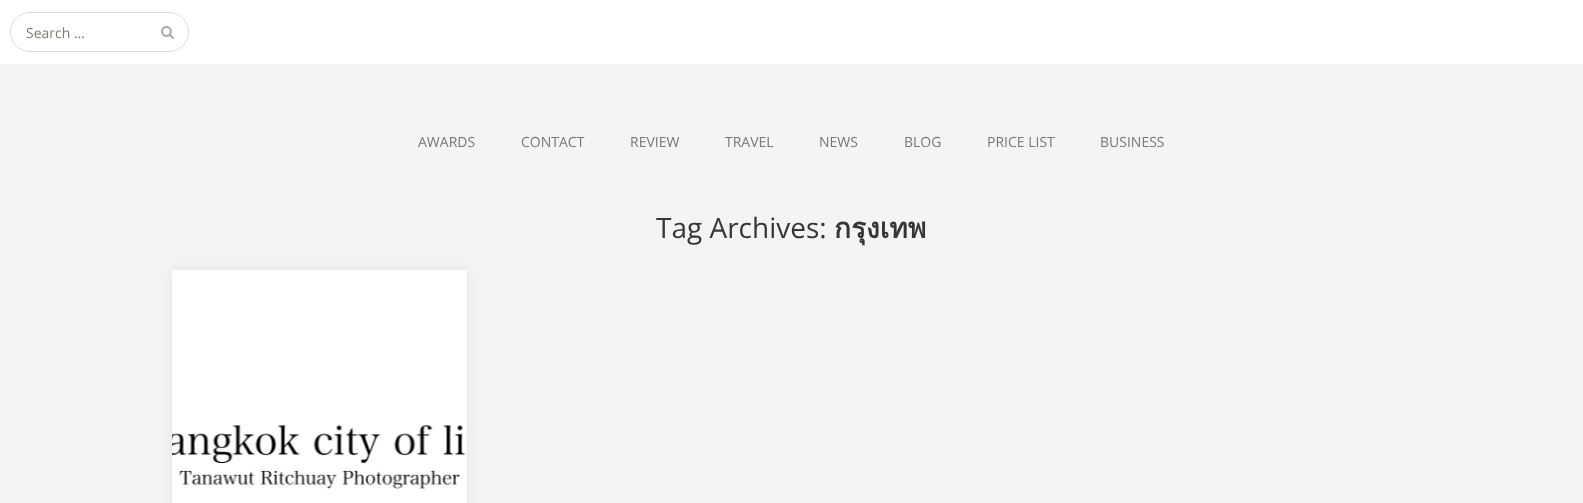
<svg xmlns="http://www.w3.org/2000/svg" width="1583" height="503" viewBox="0 0 1583 503">
  <style>
    .t1 { font: 14px Open Sans; fill: #7d7b6d; }
    .t2 { font: 14px Open Sans; fill: #777; }
    .t3 { font: 28px Open Sans; fill: #363636; }
    .t4 { font: bold 28px Loma; fill: #363636; }
  </style>
  <rect width="100%" height="100%" fill="#fff"/>
  <rect x="10.5" y="12.5" width="178" height="39" rx="19.5" fill="none" stroke="#ddd"/>
  <text x="26" y="38" class="t1">Search …</text>
  <image x="161" y="26" width="13" height="13" href="images/1.png"/>
  <rect x="0" y="64" width="1583" height="439" fill="#f4f4f4"/>
  <text x="418" y="147" class="t2">AWARDS</text>
  <text x="521" y="147" class="t2">CONTACT</text>
  <text x="630" y="147" class="t2">REVIEW</text>
  <text x="725" y="147" class="t2">TRAVEL</text>
  <text x="819" y="147" class="t2">NEWS</text>
  <text x="904" y="147" class="t2">BLOG</text>
  <text x="987" y="147" class="t2">PRICE LIST</text>
  <text x="1100" y="147" class="t2">BUSINESS</text>
  <text x="656" y="238" class="t3">Tag Archives:</text>
  <text x="834" y="238" class="t4">กรุงเทพ</text>
  <rect x="172" y="270" width="295" height="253" fill="#00000012" filter="blur(6.5px)"/>
  <rect x="172" y="270" width="295" height="233" fill="#fff"/>
  <image x="172" y="425" width="295" height="64" href="images/2.png"/>
</svg>
